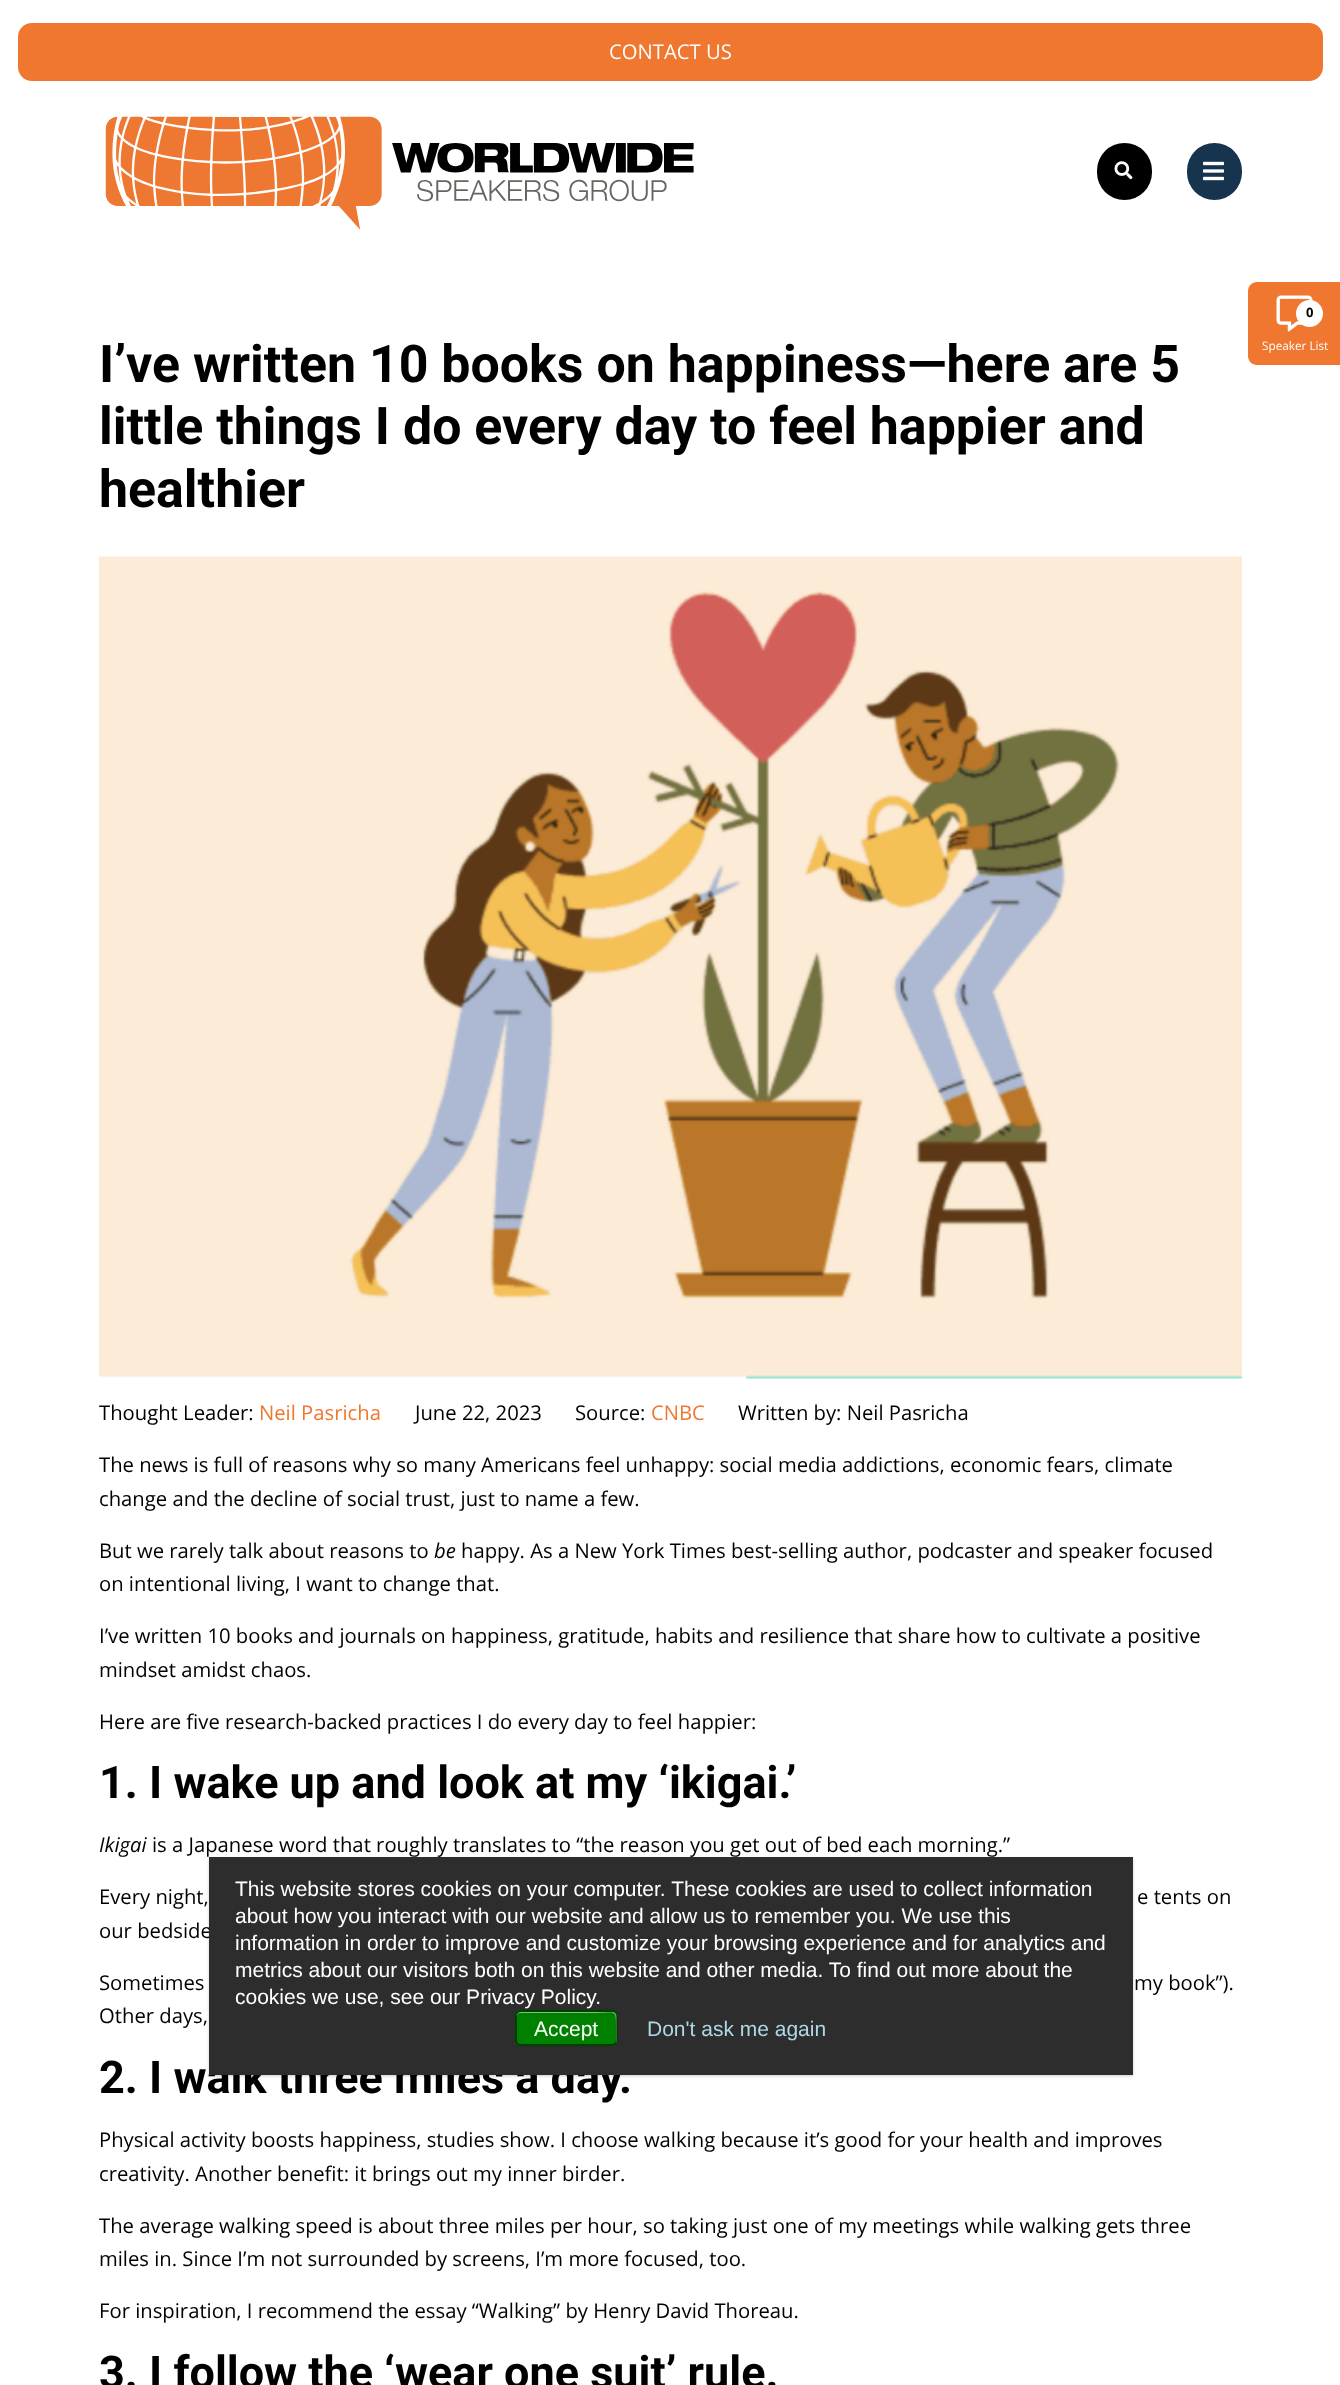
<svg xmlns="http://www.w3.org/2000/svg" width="1340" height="2385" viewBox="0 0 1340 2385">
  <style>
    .t1 { font: 20.25px Open Sans; fill: #fff; }
    .t2 { font: bold 13px Open Sans; fill: #000; }
    .t3 { font: 11.75px Open Sans; fill: #fff; }
    .t4 { font: bold 51.9px Roboto; fill: #000; }
    .t5 { font: 20.25px Open Sans; fill: #000; }
    .t6 { font: 20.25px Open Sans; fill: #f07730; }
    .t7 { font: italic 20.25px Open Sans; fill: #000; }
    .t8 { font: bold 45px Roboto; fill: #000; }
    .t9 { font: 21px Liberation Sans; fill: #fff; }
    .t10 { font: 21px Liberation Sans; fill: #add8e6; }
  </style>
  <rect width="100%" height="100%" fill="#fff"/>
  <rect x="19.5" y="24.5" width="1302" height="55" rx="12.5" fill="#f07730" stroke="#f07730" stroke-width="3"/>
  <text x="609" y="59" class="t1">CONTACT US</text>
  <image x="105" y="116" width="589" height="114" href="images/1.png"/>
  <rect x="1097" y="143" width="55" height="57" rx="27.5" fill="#000"/>
  <image x="1114" y="161" width="19" height="19" href="images/2.png"/>
  <rect x="1187" y="143" width="55" height="57" rx="27.5" fill="#16344e"/>
  <image x="1203" y="161" width="21" height="20" href="images/3.png"/>
  <path d="M1257 282H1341V365H1257C1252 365 1248 361 1248 356V291C1248 286 1252 282 1257 282Z" fill="#f07730"/>
  <image x="1276" y="295" width="37" height="37" href="images/4.png"/>
  <circle cx="1309.5" cy="313.5" r="13.5" fill="#fff"/>
  <text x="1306" y="317" class="t2">0</text>
  <text x="1262" y="350" class="t3">Speaker List</text>
  <text x="99" y="382" class="t4">I’ve written 10 books on happiness—here are 5</text>
  <text x="99" y="444" class="t4">little things I do every day to feel happier and</text>
  <text x="99" y="507" class="t4">healthier</text>
  <image x="99" y="556" width="1143" height="823" href="images/5.png"/>
  <text x="99" y="1420" class="t5">Thought Leader:</text>
  <text x="259" y="1420" class="t6">Neil Pasricha</text>
  <text x="415" y="1420" class="t5">June 22, 2023</text>
  <text x="575" y="1420" class="t5">Source:</text>
  <text x="651" y="1420" class="t6">CNBC</text>
  <text x="738" y="1420" class="t5">Written by: Neil Pasricha</text>
  <text x="99" y="1472" class="t5">The news is full of reasons why so many Americans feel unhappy: social media addictions, economic fears, climate</text>
  <text x="99" y="1506" class="t5">change and the decline of social trust, just to name a few.</text>
  <text x="99" y="1558" class="t5">But we rarely talk about reasons to</text>
  <text x="434" y="1558" class="t7">be</text>
  <text x="461" y="1558" class="t5">happy. As a New York Times best-selling author, podcaster and speaker focused</text>
  <text x="99" y="1591" class="t5">on intentional living, I want to change that.</text>
  <text x="99" y="1643" class="t5">I’ve written 10 books and journals on happiness, gratitude, habits and resilience that share how to cultivate a positive</text>
  <text x="99" y="1677" class="t5">mindset amidst chaos.</text>
  <text x="99" y="1729" class="t5">Here are five research-backed practices I do every day to feel happier:</text>
  <text x="99" y="1798" class="t8">1. I wake up and look at my ‘ikigai.’</text>
  <text x="99" y="1852" class="t7">Ikigai</text>
  <text x="152" y="1852" class="t5">is a Japanese word that roughly translates to “the reason you get out of bed each morning.”</text>
  <text x="99" y="1904" class="t5">Every night,</text>
  <text x="1137" y="1904" class="t5">e tents on</text>
  <text x="99" y="1938" class="t5">our bedside</text>
  <text x="99" y="1990" class="t5">Sometimes</text>
  <text x="1134" y="1990" class="t5">my book”).</text>
  <text x="99" y="2023" class="t5">Other days,</text>
  <text x="99" y="2093" class="t8">2. I walk three miles a day.</text>
  <text x="99" y="2147" class="t5">Physical activity boosts happiness, studies show. I choose walking because it’s good for your health and improves</text>
  <text x="99" y="2181" class="t5">creativity. Another benefit: it brings out my inner birder.</text>
  <text x="99" y="2233" class="t5">The average walking speed is about three miles per hour, so taking just one of my meetings while walking gets three</text>
  <text x="99" y="2266" class="t5">miles in. Since I’m not surrounded by screens, I’m more focused, too.</text>
  <text x="99" y="2318" class="t5">For inspiration, I recommend the essay “Walking” by Henry David Thoreau.</text>
  <text x="99" y="2388" class="t8">3. I follow the ‘wear one suit’ rule.</text>
  <rect x="209" y="1859" width="924" height="217" fill="#00000033" filter="blur(1.5px)"/>
  <rect x="209" y="1857" width="924" height="218" fill="#2d2d2d"/>
  <text x="235" y="1896" class="t9">This website stores cookies on your computer. These cookies are used to collect information</text>
  <text x="235" y="1923" class="t9">about how you interact with our website and allow us to remember you. We use this</text>
  <text x="235" y="1950" class="t9">information in order to improve and customize your browsing experience and for analytics and</text>
  <text x="235" y="1977" class="t9">metrics about our visitors both on this website and other media. To find out more about the</text>
  <text x="235" y="2004" class="t9">cookies we use, see our Privacy Policy.</text>
  <rect x="515" y="2010" width="103" height="36" rx="6" fill="#008000"/>
  <path d="M520 2013H597C615 2013 616 2009 616 2026V2043C617 2042 617 2041 617 2040V2017C617 2014 615 2012 612 2012H521C518 2012 516 2014 516 2017V2018C516 2015 518 2013 520 2013Z" fill="#80c080"/>
  <rect x="516" y="2011" width="101" height="34" rx="5" fill="none" stroke="#00000080" stroke-width="2"/>
  <text x="534" y="2036" class="t9">Accept</text>
  <text x="647" y="2036" class="t10">Don't ask me again</text>
</svg>
